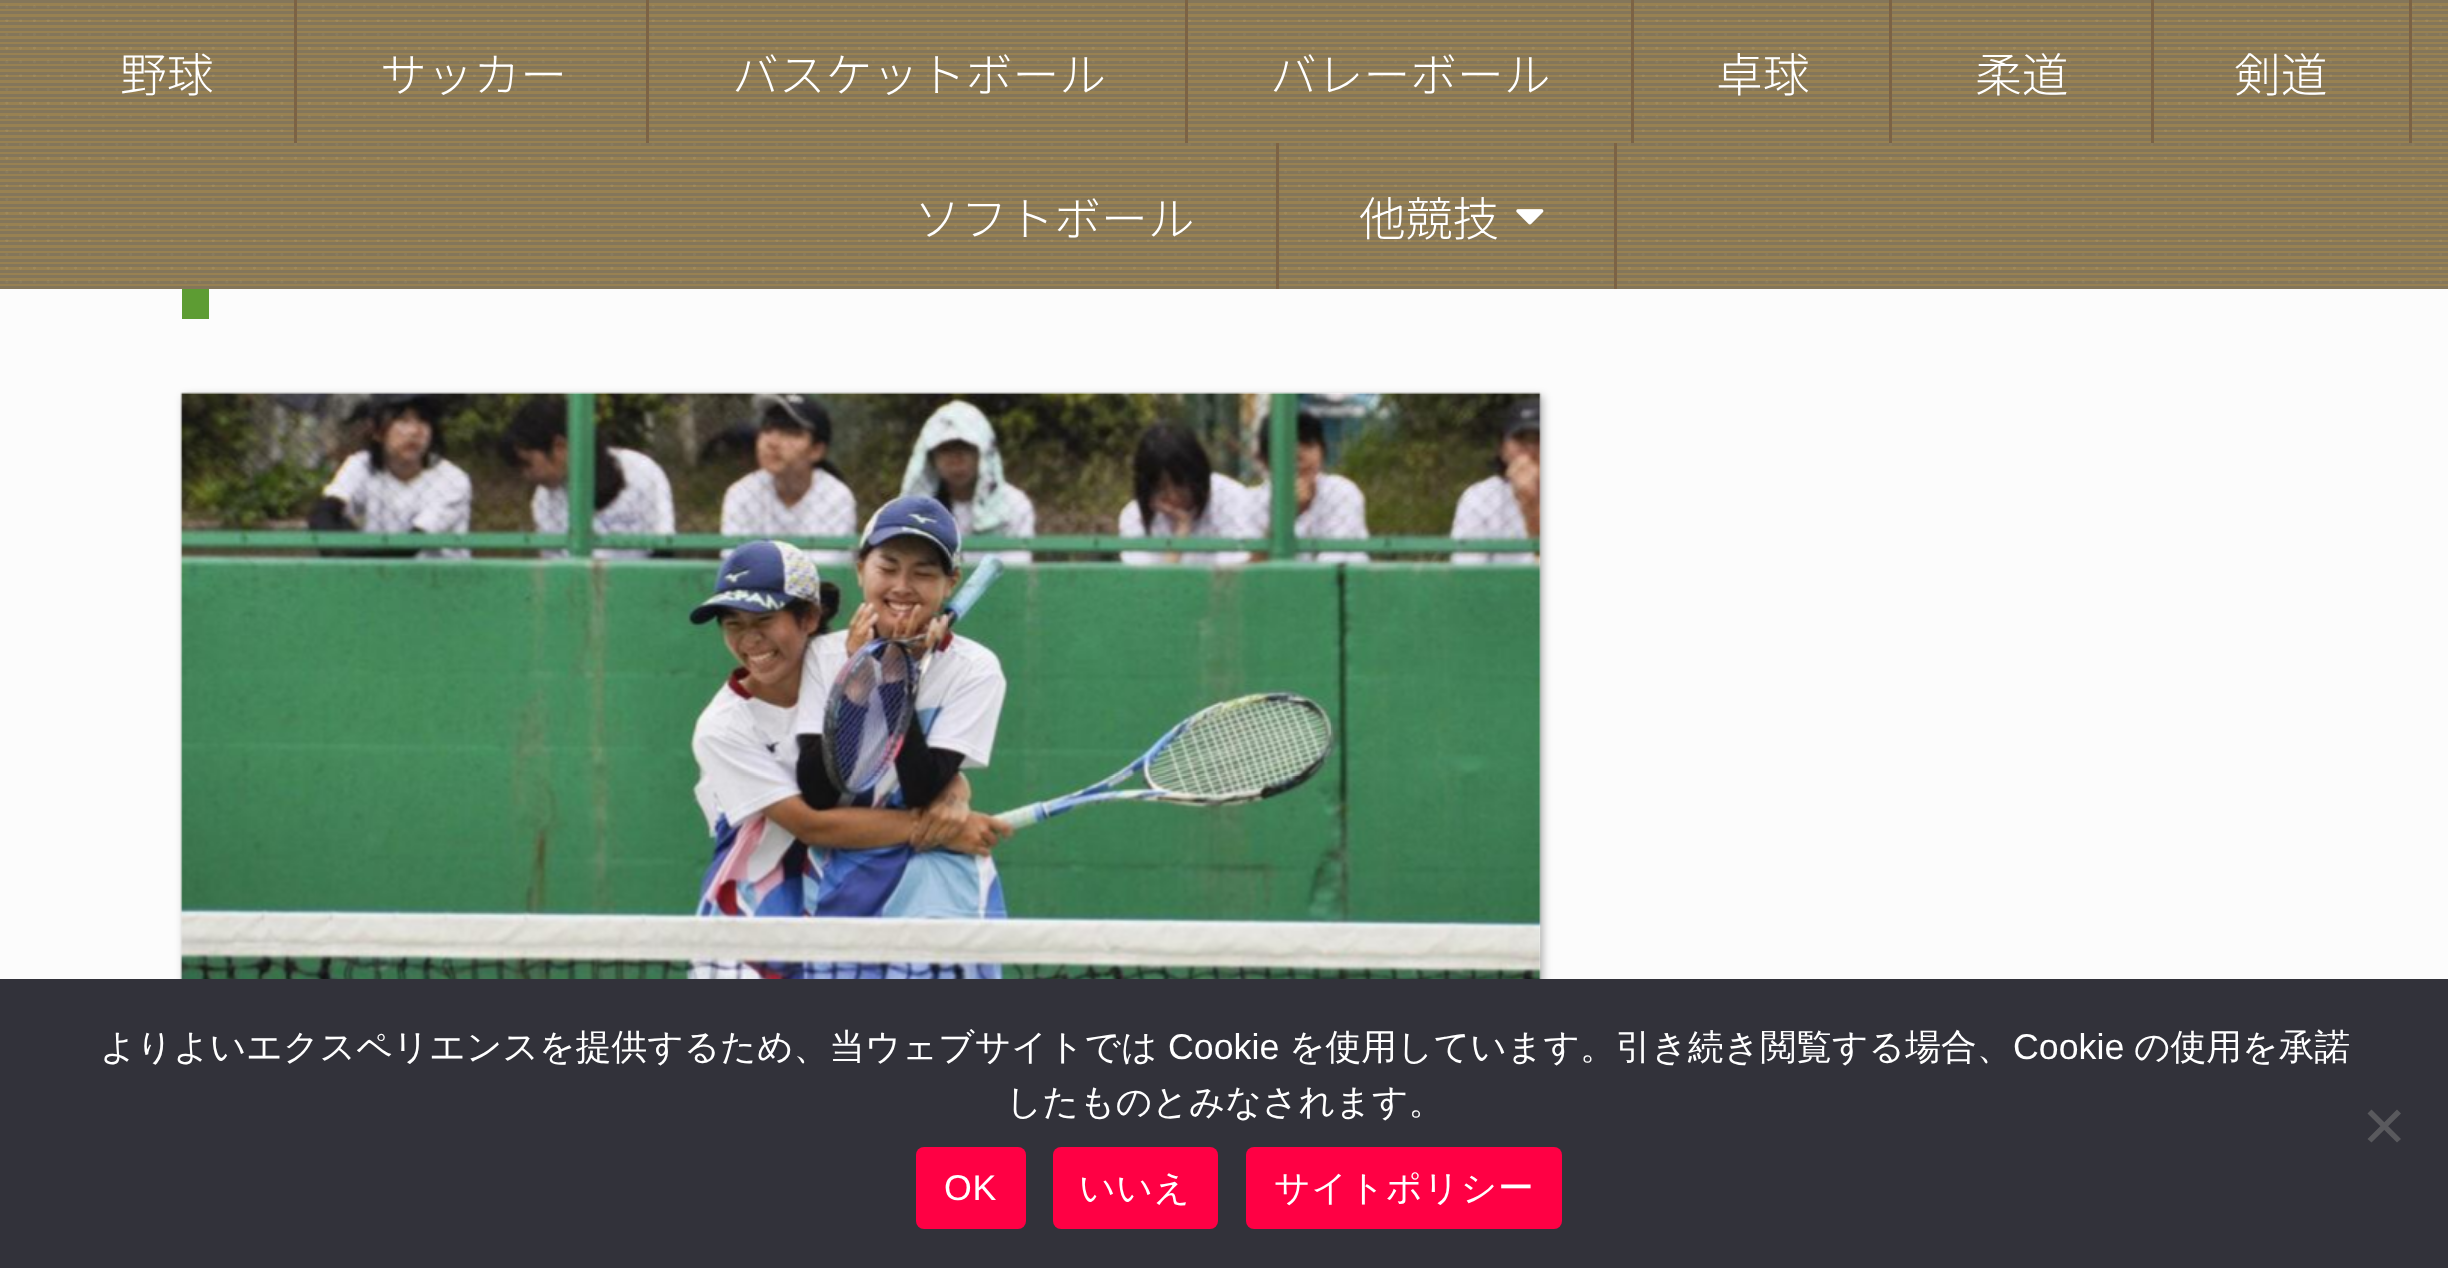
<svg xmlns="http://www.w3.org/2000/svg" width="2448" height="1268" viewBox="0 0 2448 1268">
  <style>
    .t1 { font: 300 46.75px Noto Sans JP; fill: #fff; }
    .t2 { font: 500 35.75px WenQuanYi Zen Hei; fill: #fff; }
    .t3 { font: 35.75px Liberation Sans; fill: #fff; }
    .t4 { font: 35.75px Liberation Sans; letter-spacing: 0.75px; fill: #fff; }
    .t5 { font: 500 35.75px WenQuanYi Zen Hei; letter-spacing: 0.75px; fill: #fff; }
  </style>
  <rect width="100%" height="100%" fill="#fcfcfc"/>
  <rect x="0" y="0" width="2448" height="289" fill="#000"/>
  <path d="M6.9 6.9H2441.2" fill="none" stroke="#333" stroke-width="2.9" stroke-linecap="round" stroke-dasharray="0 13.75"/>
  <path d="M6.9 20.6H2441.2" fill="none" stroke="#333" stroke-width="2.9" stroke-linecap="round" stroke-dasharray="0 13.75"/>
  <path d="M6.9 34.4H2441.2" fill="none" stroke="#333" stroke-width="2.9" stroke-linecap="round" stroke-dasharray="0 13.75"/>
  <path d="M6.9 48.1H2441.2" fill="none" stroke="#333" stroke-width="2.9" stroke-linecap="round" stroke-dasharray="0 13.75"/>
  <path d="M6.9 61.9H2441.2" fill="none" stroke="#333" stroke-width="2.9" stroke-linecap="round" stroke-dasharray="0 13.75"/>
  <path d="M6.9 75.6H2441.2" fill="none" stroke="#333" stroke-width="2.9" stroke-linecap="round" stroke-dasharray="0 13.75"/>
  <path d="M6.9 89.4H2441.2" fill="none" stroke="#333" stroke-width="2.9" stroke-linecap="round" stroke-dasharray="0 13.75"/>
  <path d="M6.9 103.1H2441.2" fill="none" stroke="#333" stroke-width="2.9" stroke-linecap="round" stroke-dasharray="0 13.75"/>
  <path d="M6.9 116.9H2441.2" fill="none" stroke="#333" stroke-width="2.9" stroke-linecap="round" stroke-dasharray="0 13.75"/>
  <path d="M6.9 130.6H2441.2" fill="none" stroke="#333" stroke-width="2.9" stroke-linecap="round" stroke-dasharray="0 13.75"/>
  <path d="M6.9 144.4H2441.2" fill="none" stroke="#333" stroke-width="2.9" stroke-linecap="round" stroke-dasharray="0 13.75"/>
  <path d="M6.9 158.1H2441.2" fill="none" stroke="#333" stroke-width="2.9" stroke-linecap="round" stroke-dasharray="0 13.75"/>
  <path d="M6.9 171.9H2441.2" fill="none" stroke="#333" stroke-width="2.9" stroke-linecap="round" stroke-dasharray="0 13.75"/>
  <path d="M6.9 185.6H2441.2" fill="none" stroke="#333" stroke-width="2.9" stroke-linecap="round" stroke-dasharray="0 13.75"/>
  <path d="M6.9 199.4H2441.2" fill="none" stroke="#333" stroke-width="2.9" stroke-linecap="round" stroke-dasharray="0 13.75"/>
  <path d="M6.9 213.1H2441.2" fill="none" stroke="#333" stroke-width="2.9" stroke-linecap="round" stroke-dasharray="0 13.75"/>
  <path d="M6.9 226.9H2441.2" fill="none" stroke="#333" stroke-width="2.9" stroke-linecap="round" stroke-dasharray="0 13.75"/>
  <path d="M6.9 240.6H2441.2" fill="none" stroke="#333" stroke-width="2.9" stroke-linecap="round" stroke-dasharray="0 13.75"/>
  <path d="M6.9 254.4H2441.2" fill="none" stroke="#333" stroke-width="2.9" stroke-linecap="round" stroke-dasharray="0 13.75"/>
  <path d="M6.9 268.1H2441.2" fill="none" stroke="#333" stroke-width="2.9" stroke-linecap="round" stroke-dasharray="0 13.75"/>
  <path d="M6.9 281.9H2441.2" fill="none" stroke="#333" stroke-width="2.9" stroke-linecap="round" stroke-dasharray="0 13.75"/>
  <path d="M6.9 6.9H2441.2" fill="none" stroke="#333" stroke-width="2.9" stroke-linecap="round" stroke-dasharray="0 13.75"/>
  <path d="M6.9 20.6H2441.2" fill="none" stroke="#333" stroke-width="2.9" stroke-linecap="round" stroke-dasharray="0 13.75"/>
  <path d="M6.9 34.4H2441.2" fill="none" stroke="#333" stroke-width="2.9" stroke-linecap="round" stroke-dasharray="0 13.75"/>
  <path d="M6.9 48.1H2441.2" fill="none" stroke="#333" stroke-width="2.9" stroke-linecap="round" stroke-dasharray="0 13.75"/>
  <path d="M6.9 61.9H2441.2" fill="none" stroke="#333" stroke-width="2.9" stroke-linecap="round" stroke-dasharray="0 13.75"/>
  <path d="M6.9 75.6H2441.2" fill="none" stroke="#333" stroke-width="2.9" stroke-linecap="round" stroke-dasharray="0 13.75"/>
  <path d="M6.9 89.4H2441.2" fill="none" stroke="#333" stroke-width="2.9" stroke-linecap="round" stroke-dasharray="0 13.75"/>
  <path d="M6.9 103.1H2441.2" fill="none" stroke="#333" stroke-width="2.9" stroke-linecap="round" stroke-dasharray="0 13.75"/>
  <path d="M6.9 116.9H2441.2" fill="none" stroke="#333" stroke-width="2.9" stroke-linecap="round" stroke-dasharray="0 13.75"/>
  <path d="M6.9 130.6H2441.2" fill="none" stroke="#333" stroke-width="2.9" stroke-linecap="round" stroke-dasharray="0 13.75"/>
  <path d="M6.9 144.4H2441.2" fill="none" stroke="#333" stroke-width="2.9" stroke-linecap="round" stroke-dasharray="0 13.75"/>
  <path d="M6.9 158.1H2441.2" fill="none" stroke="#333" stroke-width="2.9" stroke-linecap="round" stroke-dasharray="0 13.75"/>
  <path d="M6.9 171.9H2441.2" fill="none" stroke="#333" stroke-width="2.9" stroke-linecap="round" stroke-dasharray="0 13.75"/>
  <path d="M6.9 185.6H2441.2" fill="none" stroke="#333" stroke-width="2.9" stroke-linecap="round" stroke-dasharray="0 13.75"/>
  <path d="M6.9 199.4H2441.2" fill="none" stroke="#333" stroke-width="2.9" stroke-linecap="round" stroke-dasharray="0 13.75"/>
  <path d="M6.9 213.1H2441.2" fill="none" stroke="#333" stroke-width="2.9" stroke-linecap="round" stroke-dasharray="0 13.75"/>
  <path d="M6.9 226.9H2441.2" fill="none" stroke="#333" stroke-width="2.9" stroke-linecap="round" stroke-dasharray="0 13.75"/>
  <path d="M6.9 240.6H2441.2" fill="none" stroke="#333" stroke-width="2.9" stroke-linecap="round" stroke-dasharray="0 13.75"/>
  <path d="M6.9 254.4H2441.2" fill="none" stroke="#333" stroke-width="2.9" stroke-linecap="round" stroke-dasharray="0 13.75"/>
  <path d="M6.9 268.1H2441.2" fill="none" stroke="#333" stroke-width="2.9" stroke-linecap="round" stroke-dasharray="0 13.75"/>
  <path d="M6.9 281.9H2441.2" fill="none" stroke="#333" stroke-width="2.9" stroke-linecap="round" stroke-dasharray="0 13.75"/>
  <rect x="0" y="0" width="2448" height="289" fill="#d5b064c7"/>
  <rect x="0" y="0" width="2448" height="289" fill="#66666633"/>
  <image x="0" y="0" width="2448" height="289" href="images/1.png"/>
  <rect x="294" y="0" width="3" height="143" fill="#7c6345"/>
  <text x="120" y="92" class="t1">野球</text>
  <rect x="646" y="0" width="3" height="143" fill="#7c6345"/>
  <text x="380" y="92" class="t1">サッカー</text>
  <rect x="1185" y="0" width="3" height="143" fill="#7c6345"/>
  <text x="732" y="92" class="t1">バスケットボール</text>
  <rect x="1631" y="0" width="3" height="143" fill="#7c6345"/>
  <text x="1270" y="92" class="t1">バレーボール</text>
  <rect x="1889" y="0" width="3" height="143" fill="#7c6345"/>
  <text x="1716" y="92" class="t1">卓球</text>
  <rect x="2151" y="0" width="3" height="143" fill="#7c6345"/>
  <text x="1975" y="92" class="t1">柔道</text>
  <rect x="2409" y="0" width="3" height="143" fill="#7c6345"/>
  <text x="2234" y="92" class="t1">剣道</text>
  <rect x="1276" y="143" width="3" height="146" fill="#7c6345"/>
  <text x="914" y="236" class="t1">ソフトボール</text>
  <rect x="1614" y="143" width="3" height="146" fill="#7c6345"/>
  <text x="1359" y="236" class="t1">他競技</text>
  <image x="1516" y="209" width="28" height="16" href="images/2.png"/>
  <rect x="182" y="289" width="27" height="30" fill="#5d9c33"/>
  <rect x="184" y="396" width="1359" height="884" fill="#0000004d" filter="blur(4px)"/>
  <rect x="182" y="393" width="1358" height="586" fill="#fff"/>
  <image x="180" y="392" width="1362" height="587" href="images/3.png"/>
  <rect x="0" y="979" width="2448" height="289" fill="#32323a"/>
  <text x="100" y="1059" class="t2">よりよいエクスペリエンスを提供するため、当ウェブサイトでは</text>
  <text x="1168" y="1059" class="t3">Cookie</text>
  <text x="1289" y="1059" class="t2">を使用しています。引き続き閲覧する場合、</text>
  <text x="2013" y="1059" class="t3">Cookie</text>
  <text x="2134" y="1059" class="t2">の使用を承諾</text>
  <text x="1006" y="1114" class="t2">したものとみなされます。</text>
  <path d="M2397 1109.5L2401 1113.5L2371.5 1142.5L2367.5 1139Z" fill="#59595d"/>
  <path d="M2367.5 1113.5L2371.5 1109.5L2401 1139L2397 1142.5Z" fill="#59595d"/>
  <rect x="916" y="1147" width="110" height="82" rx="8" fill="#f04"/>
  <text x="944" y="1200" class="t4">OK</text>
  <rect x="1053" y="1147" width="165" height="82" rx="8" fill="#f04"/>
  <text x="1079" y="1200" class="t5">いいえ</text>
  <rect x="1246" y="1147" width="316" height="82" rx="8" fill="#f04"/>
  <text x="1274" y="1200" class="t5">サイトポリシー</text>
</svg>
